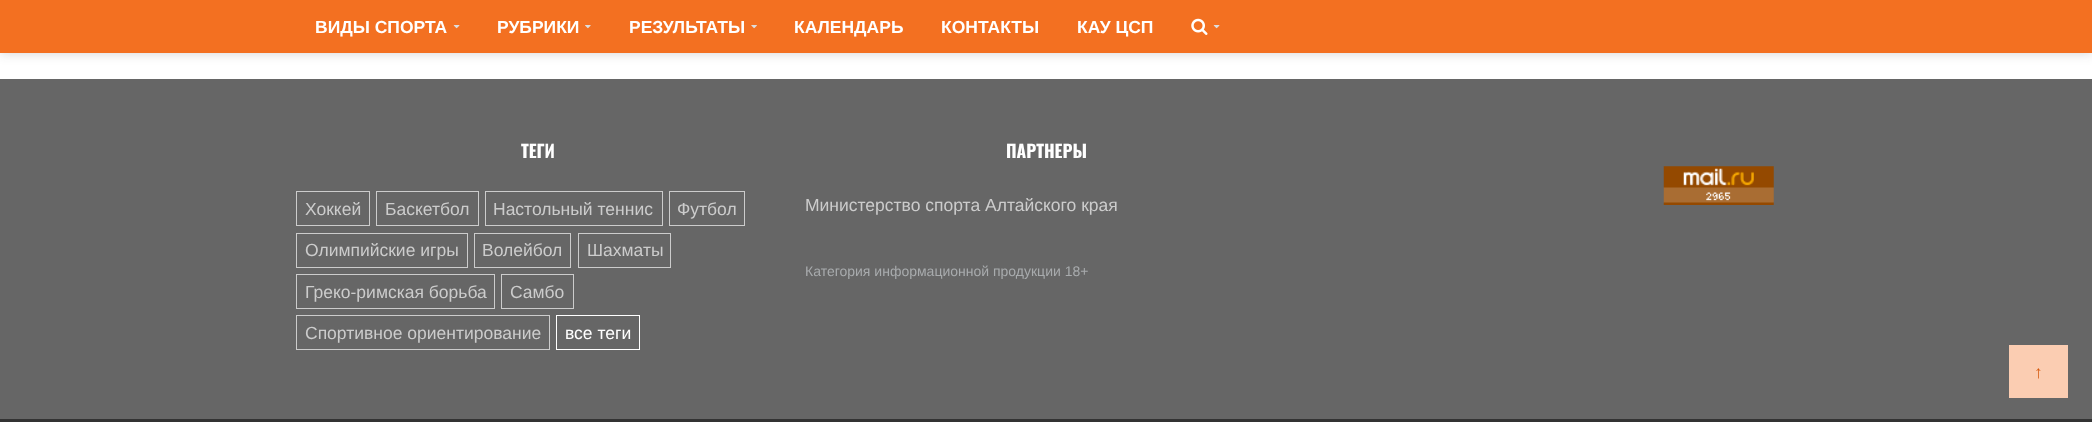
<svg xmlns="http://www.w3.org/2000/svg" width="2092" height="422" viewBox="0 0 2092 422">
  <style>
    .t1 { font: bold 17.5px Liberation Sans; fill: #fff; }
    .t2 { font: bold 17.5px Oswald; fill: #fff; }
    .t3 { font: 17.5px Liberation Sans; fill: #ccc; }
    .t4 { font: 17.5px Liberation Sans; fill: #fff; }
    .t5 { font: 14px Liberation Sans; fill: #a8abad; }
    .t6 { font: 17.5px Liberation Sans; fill: #d5580c; }
  </style>
  <rect width="100%" height="100%" fill="#fff"/>
  <rect x="0" y="0" width="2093" height="53" fill="#22222233" filter="blur(6px)"/>
  <rect x="0" y="0" width="2092" height="53" fill="#f37021"/>
  <text x="315" y="33" class="t1">ВИДЫ СПОРТА</text>
  <image x="453" y="25" width="7" height="4" href="images/1.png"/>
  <text x="497" y="33" class="t1">РУБРИКИ</text>
  <image x="585" y="25" width="6" height="4" href="images/2.png"/>
  <text x="629" y="33" class="t1">РЕЗУЛЬТАТЫ</text>
  <image x="751" y="25" width="6" height="4" href="images/3.png"/>
  <text x="794" y="33" class="t1">КАЛЕНДАРЬ</text>
  <text x="941" y="33" class="t1">КОНТАКТЫ</text>
  <text x="1077" y="33" class="t1">КАУ ЦСП</text>
  <image x="1191" y="18" width="17" height="17" href="images/4.png"/>
  <image x="1213" y="25" width="7" height="4" href="images/1.png"/>
  <rect x="0" y="79" width="2092" height="340" fill="#666"/>
  <text x="521" y="158" class="t2">ТЕГИ</text>
  <rect x="296.5" y="191.5" width="73" height="34" fill="none" stroke="#ccc"/>
  <text x="305" y="215" class="t3">Хоккей</text>
  <rect x="376.5" y="191.5" width="102" height="34" fill="none" stroke="#ccc"/>
  <text x="385" y="215" class="t3">Баскетбол</text>
  <rect x="485.5" y="191.5" width="177" height="34" fill="none" stroke="#ccc"/>
  <text x="493" y="215" class="t3">Настольный теннис</text>
  <rect x="669.5" y="191.5" width="75" height="34" fill="none" stroke="#ccc"/>
  <text x="677" y="215" class="t3">Футбол</text>
  <rect x="296.5" y="233.5" width="171" height="34" fill="none" stroke="#ccc"/>
  <text x="305" y="256" class="t3">Олимпийские игры</text>
  <rect x="474.5" y="233.5" width="96" height="34" fill="none" stroke="#ccc"/>
  <text x="482" y="256" class="t3">Волейбол</text>
  <rect x="578.5" y="233.5" width="92" height="34" fill="none" stroke="#ccc"/>
  <text x="587" y="256" class="t3">Шахматы</text>
  <rect x="296.5" y="274.5" width="198" height="34" fill="none" stroke="#ccc"/>
  <text x="305" y="298" class="t3">Греко-римская борьба</text>
  <rect x="501.5" y="274.5" width="72" height="34" fill="none" stroke="#ccc"/>
  <text x="510" y="298" class="t3">Самбо</text>
  <rect x="296.5" y="315.5" width="253" height="34" fill="none" stroke="#ccc"/>
  <text x="305" y="339" class="t3">Спортивное ориентирование</text>
  <rect x="556.5" y="315.5" width="83" height="34" fill="none" stroke="#fff"/>
  <text x="565" y="339" class="t4">все теги</text>
  <text x="1006" y="158" class="t2">ПАРТНЕРЫ</text>
  <text x="805" y="211" class="t3">Министерство спорта Алтайского края</text>
  <text x="805" y="276" class="t5">Категория информационной продукции 18+</text>
  <image x="1663" y="166" width="111" height="39" href="images/5.png"/>
  <rect x="0" y="419" width="2092" height="3" fill="#333"/>
  <rect x="2009" y="345" width="59" height="53" fill="#fbcdb2"/>
  <text x="2034" y="378" class="t6">↑</text>
</svg>
